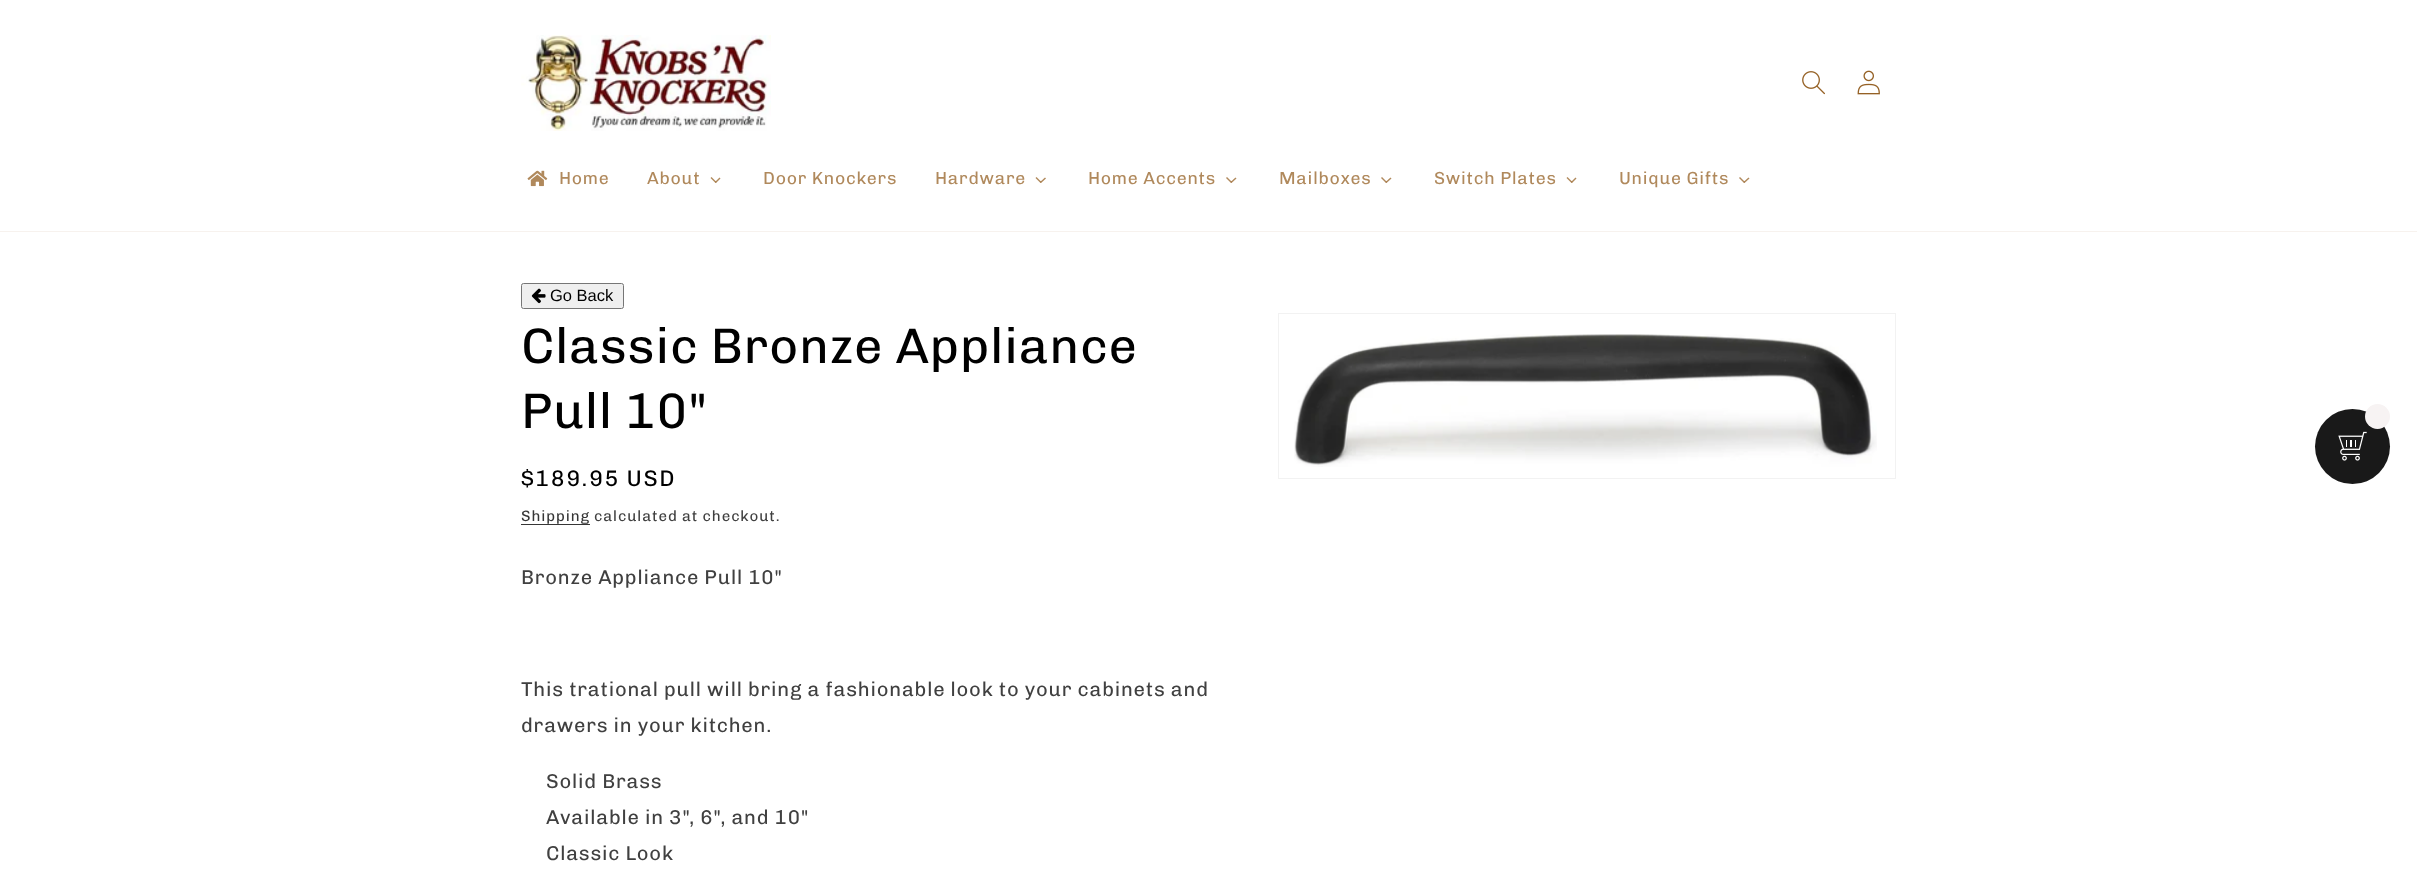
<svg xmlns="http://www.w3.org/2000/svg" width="2417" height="879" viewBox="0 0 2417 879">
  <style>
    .t1 { font: 17.5px Chivo; letter-spacing: 0.75px; fill: #b0895c; }
    .t2 { font: 16.5px Liberation Sans; fill: #000; }
    .t3 { font: 50px Chivo; letter-spacing: 0.75px; fill: #000; }
    .t4 { font: 22.5px Chivo; letter-spacing: 1.6px; fill: #000; }
    .t5 { font: 15px Chivo; letter-spacing: 0.9px; fill: #363636; }
    .t6 { font: 15px Chivo; letter-spacing: 0.9px; fill: #404040; }
    .t7 { font: 20px Chivo; letter-spacing: 0.75px; fill: #404040; }
  </style>
  <rect width="100%" height="100%" fill="#fff"/>
  <rect x="0" y="231" width="2417" height="1" fill="#f7f2ee"/>
  <image x="521" y="35" width="250" height="96" href="images/1.png"/>
  <image x="1802" y="71" width="23" height="24" href="images/2.png"/>
  <image x="1857" y="70" width="23" height="25" href="images/3.png"/>
  <image x="527" y="170" width="21" height="17" href="images/4.png"/>
  <text x="559" y="184" class="t1">Home</text>
  <text x="647" y="184" class="t1">About</text>
  <path d="M719.5 177.5L720.5 178.5L716 183L715 182Z" fill="#b0895c"/>
  <path d="M711.5 177L716.5 182L715.5 183L710.5 178Z" fill="#956125bf"/>
  <text x="763" y="184" class="t1">Door Knockers</text>
  <text x="935" y="184" class="t1">Hardware</text>
  <path d="M1045 177.5L1046 178.5L1041 183L1040 182Z" fill="#b0895c"/>
  <path d="M1036.5 177L1041.5 182L1040.5 183L1035.5 178Z" fill="#956125bf"/>
  <text x="1088" y="184" class="t1">Home Accents</text>
  <path d="M1235.5 177.5L1236.5 178.5L1231.5 183L1230.5 182Z" fill="#b0895c"/>
  <path d="M1227 177L1232 182L1231 183L1226 178Z" fill="#956125bf"/>
  <text x="1279" y="184" class="t1">Mailboxes</text>
  <path d="M1390.5 177.5L1391.5 178.5L1386.5 183L1385.5 182Z" fill="#b0895c"/>
  <path d="M1382 177L1387 182L1386 183L1381 178Z" fill="#956125bf"/>
  <text x="1434" y="184" class="t1">Switch Plates</text>
  <path d="M1575.5 177.5L1576.5 178.5L1572 183L1571 182Z" fill="#b0895c"/>
  <path d="M1567.5 177L1572.5 182L1571.5 183L1566.5 178Z" fill="#956125bf"/>
  <text x="1619" y="184" class="t1">Unique Gifts</text>
  <path d="M1748.5 177.5L1749.5 178.5L1744.5 183L1743.5 182Z" fill="#b0895c"/>
  <path d="M1740 177L1745 182L1744 183L1739 178Z" fill="#956125bf"/>
  <rect x="521.5" y="283.5" width="102" height="25" rx="2" fill="#efefef" stroke="#767676"/>
  <image x="531" y="288" width="15" height="16" href="images/5.png"/>
  <text x="550" y="301" class="t2">Go Back</text>
  <text x="521" y="363" class="t3">Classic Bronze Appliance</text>
  <text x="521" y="428" class="t3">Pull 10"</text>
  <text x="521" y="486" class="t4">$189.95 USD</text>
  <text x="521" y="521" class="t5">Shipping</text>
  <rect x="521" y="524" width="69" height="1" fill="#363636"/>
  <text x="594" y="521" class="t6">calculated at checkout.</text>
  <text x="521" y="584" class="t7">Bronze Appliance Pull 10"</text>
  <text x="521" y="696" class="t7">This trational pull will bring a fashionable look to your cabinets and</text>
  <text x="521" y="732" class="t7">drawers in your kitchen.</text>
  <text x="546" y="788" class="t7">Solid Brass</text>
  <text x="546" y="824" class="t7">Available in 3", 6", and 10"</text>
  <text x="546" y="860" class="t7">Classic Look</text>
  <rect x="1278.5" y="313.5" width="617" height="165" fill="none" stroke="#f2f2f2"/>
  <image x="1294" y="334" width="583" height="133" href="images/6.png"/>
  <circle cx="2352.5" cy="446.5" r="37.5" fill="#191919"/>
  <circle cx="2377.5" cy="416.5" r="12.5" fill="#f7f3f3"/>
  <image x="2338" y="431" width="29" height="30" href="images/7.png"/>
</svg>
